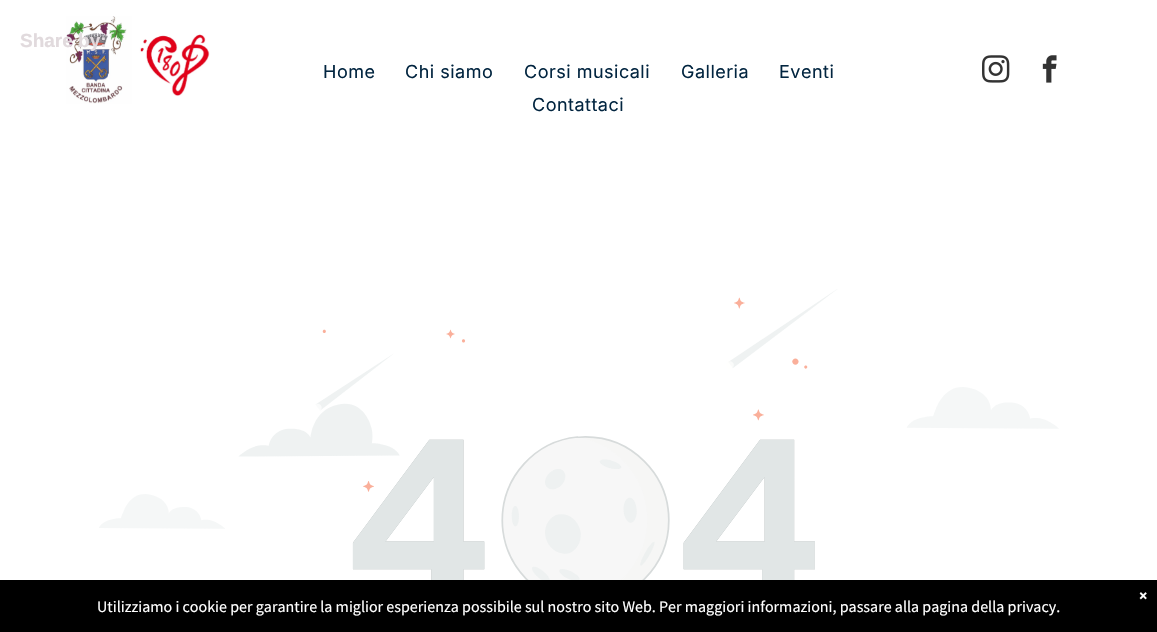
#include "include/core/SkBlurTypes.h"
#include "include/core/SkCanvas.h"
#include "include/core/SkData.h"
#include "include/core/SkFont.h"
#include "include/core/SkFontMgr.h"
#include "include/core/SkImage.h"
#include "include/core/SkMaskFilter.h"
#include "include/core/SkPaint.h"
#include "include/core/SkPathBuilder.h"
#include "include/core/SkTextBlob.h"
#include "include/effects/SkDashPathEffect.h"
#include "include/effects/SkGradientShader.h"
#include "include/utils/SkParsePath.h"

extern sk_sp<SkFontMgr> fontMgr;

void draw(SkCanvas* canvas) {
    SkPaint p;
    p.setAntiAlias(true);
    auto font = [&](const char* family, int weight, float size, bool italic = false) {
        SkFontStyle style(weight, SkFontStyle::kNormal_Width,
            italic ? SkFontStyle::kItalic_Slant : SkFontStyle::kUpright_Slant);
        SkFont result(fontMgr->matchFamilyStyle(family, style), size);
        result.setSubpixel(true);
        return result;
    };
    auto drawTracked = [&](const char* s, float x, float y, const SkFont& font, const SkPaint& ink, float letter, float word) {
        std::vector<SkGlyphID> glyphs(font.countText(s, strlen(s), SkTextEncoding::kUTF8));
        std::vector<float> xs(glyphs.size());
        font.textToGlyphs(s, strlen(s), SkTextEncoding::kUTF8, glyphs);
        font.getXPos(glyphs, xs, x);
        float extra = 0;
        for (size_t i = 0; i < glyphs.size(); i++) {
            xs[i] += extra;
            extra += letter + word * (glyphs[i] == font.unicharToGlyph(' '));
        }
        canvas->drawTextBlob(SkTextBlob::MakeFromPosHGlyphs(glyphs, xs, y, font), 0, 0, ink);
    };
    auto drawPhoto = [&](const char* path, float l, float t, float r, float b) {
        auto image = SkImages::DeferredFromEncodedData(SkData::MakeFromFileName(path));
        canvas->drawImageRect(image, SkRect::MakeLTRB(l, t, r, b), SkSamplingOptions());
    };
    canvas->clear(0xFFFFFFFF);
    drawPhoto("media/1.png", 66, 16, 210, 104);
    auto font1 = font("Liberation Sans", 700, 19);
    p.setColor(0xFFE1DADD);
    canvas->drawString("Share by:", 20, 47, font1, p);
    auto font2 = font("Inter", 400, 18);
    p.setColor(0xFF022540);
    {
        const struct { const char* s; float x, y; } items[] = {
            {"Home", 323, 78},
            {"Chi siamo", 405, 78},
            {"Corsi musicali", 524, 78},
            {"Galleria", 681, 78},
            {"Eventi", 779, 78},
            {"Contattaci", 532, 111},
        };
        for (auto [s, x, y] : items) {
            drawTracked(s, x, y, font2, p, 0.5f, 0);
        }
    }
    drawPhoto("media/2.png", 982, 55, 1010, 83);
    drawPhoto("media/3.png", 1042, 55, 1057, 83);
    drawPhoto("media/4.png", 99, 289, 1059, 580);
    p.setColor(0xFF000000);
    canvas->drawRect(SkRect::MakeLTRB(0, 580, 1157, 632), p);
    auto font3 = font("Source Sans Pro", 700, 16);
    p.setColor(0xFFFFFFFF);
    canvas->drawString("×", 1139, 601, font3, p);
    auto font4 = font("Source Sans Pro", 400, 16);
    canvas->drawString("Utilizziamo i cookie per garantire la miglior esperienza possibile sul nostro sito Web. Per maggiori informazioni, passare alla pagina della privacy.", 97, 612, font4, p);
}
